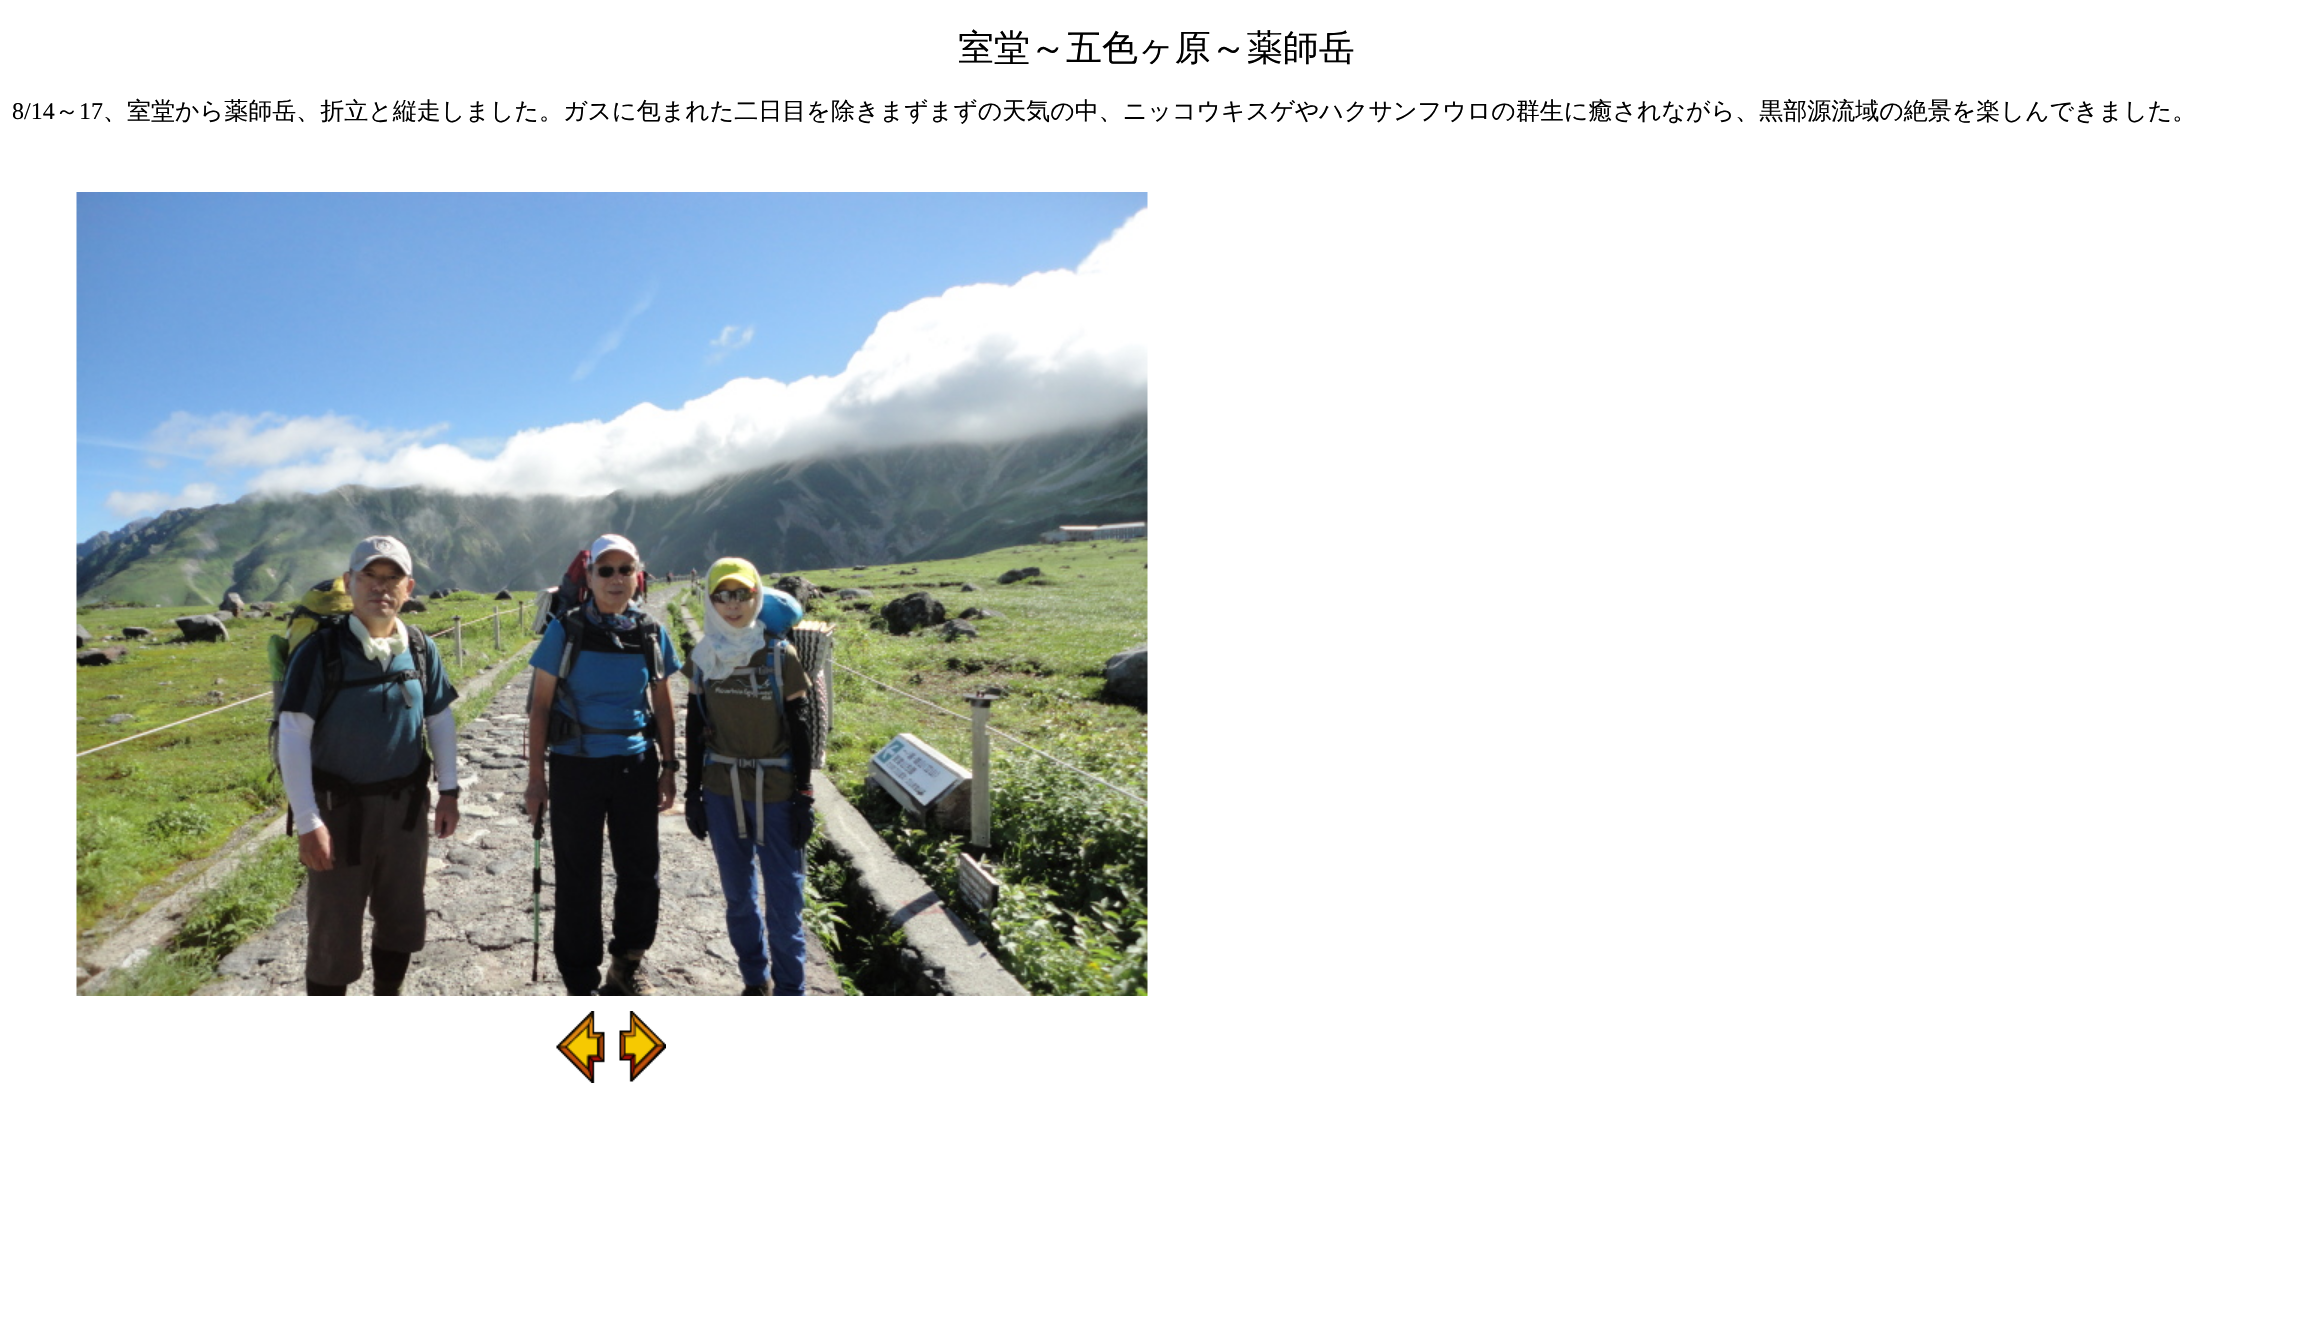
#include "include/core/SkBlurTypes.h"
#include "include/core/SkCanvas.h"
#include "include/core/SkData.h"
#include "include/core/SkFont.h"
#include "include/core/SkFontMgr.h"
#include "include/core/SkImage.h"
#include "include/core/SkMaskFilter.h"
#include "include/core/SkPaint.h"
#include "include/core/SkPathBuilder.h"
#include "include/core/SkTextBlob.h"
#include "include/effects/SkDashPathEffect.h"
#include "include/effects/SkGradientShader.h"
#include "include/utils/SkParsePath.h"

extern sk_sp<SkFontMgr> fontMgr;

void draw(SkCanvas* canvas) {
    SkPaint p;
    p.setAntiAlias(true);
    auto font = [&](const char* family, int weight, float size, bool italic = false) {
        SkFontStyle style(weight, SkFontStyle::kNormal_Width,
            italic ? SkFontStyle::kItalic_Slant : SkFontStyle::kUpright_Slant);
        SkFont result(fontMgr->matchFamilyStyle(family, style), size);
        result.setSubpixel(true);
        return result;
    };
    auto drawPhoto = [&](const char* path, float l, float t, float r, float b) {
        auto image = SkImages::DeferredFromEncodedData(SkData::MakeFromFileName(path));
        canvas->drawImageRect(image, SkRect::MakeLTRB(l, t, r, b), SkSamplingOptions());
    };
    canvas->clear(0xFFFFFFFF);
    auto font1 = font("WenQuanYi Zen Hei", 500, 36);
    p.setColor(0xFF000000);
    canvas->drawString("室堂～五色ヶ原～薬師岳", 958, 60, font1, p);
    auto font2 = font("Liberation Serif", 400, 24);
    canvas->drawString("8/14", 12, 119, font2, p);
    auto font3 = font("WenQuanYi Zen Hei", 500, 24);
    canvas->drawString("～", 55, 119, font3, p);
    canvas->drawString("17", 79, 119, font2, p);
    canvas->drawString("、室堂から薬師岳、折立と縦走しました。ガスに包まれた二日目を除きまずまずの天気の中、ニッコウキスゲやハクサンフウロの群生に癒されながら、黒部源流域の絶景を楽しんできました。", 103, 119, font3, p);
    drawPhoto("media/1.png", 76, 192, 1148, 996);
    drawPhoto("media/2.png", 556, 1011, 605, 1083);
    drawPhoto("media/3.png", 619, 1011, 666, 1082);
}
